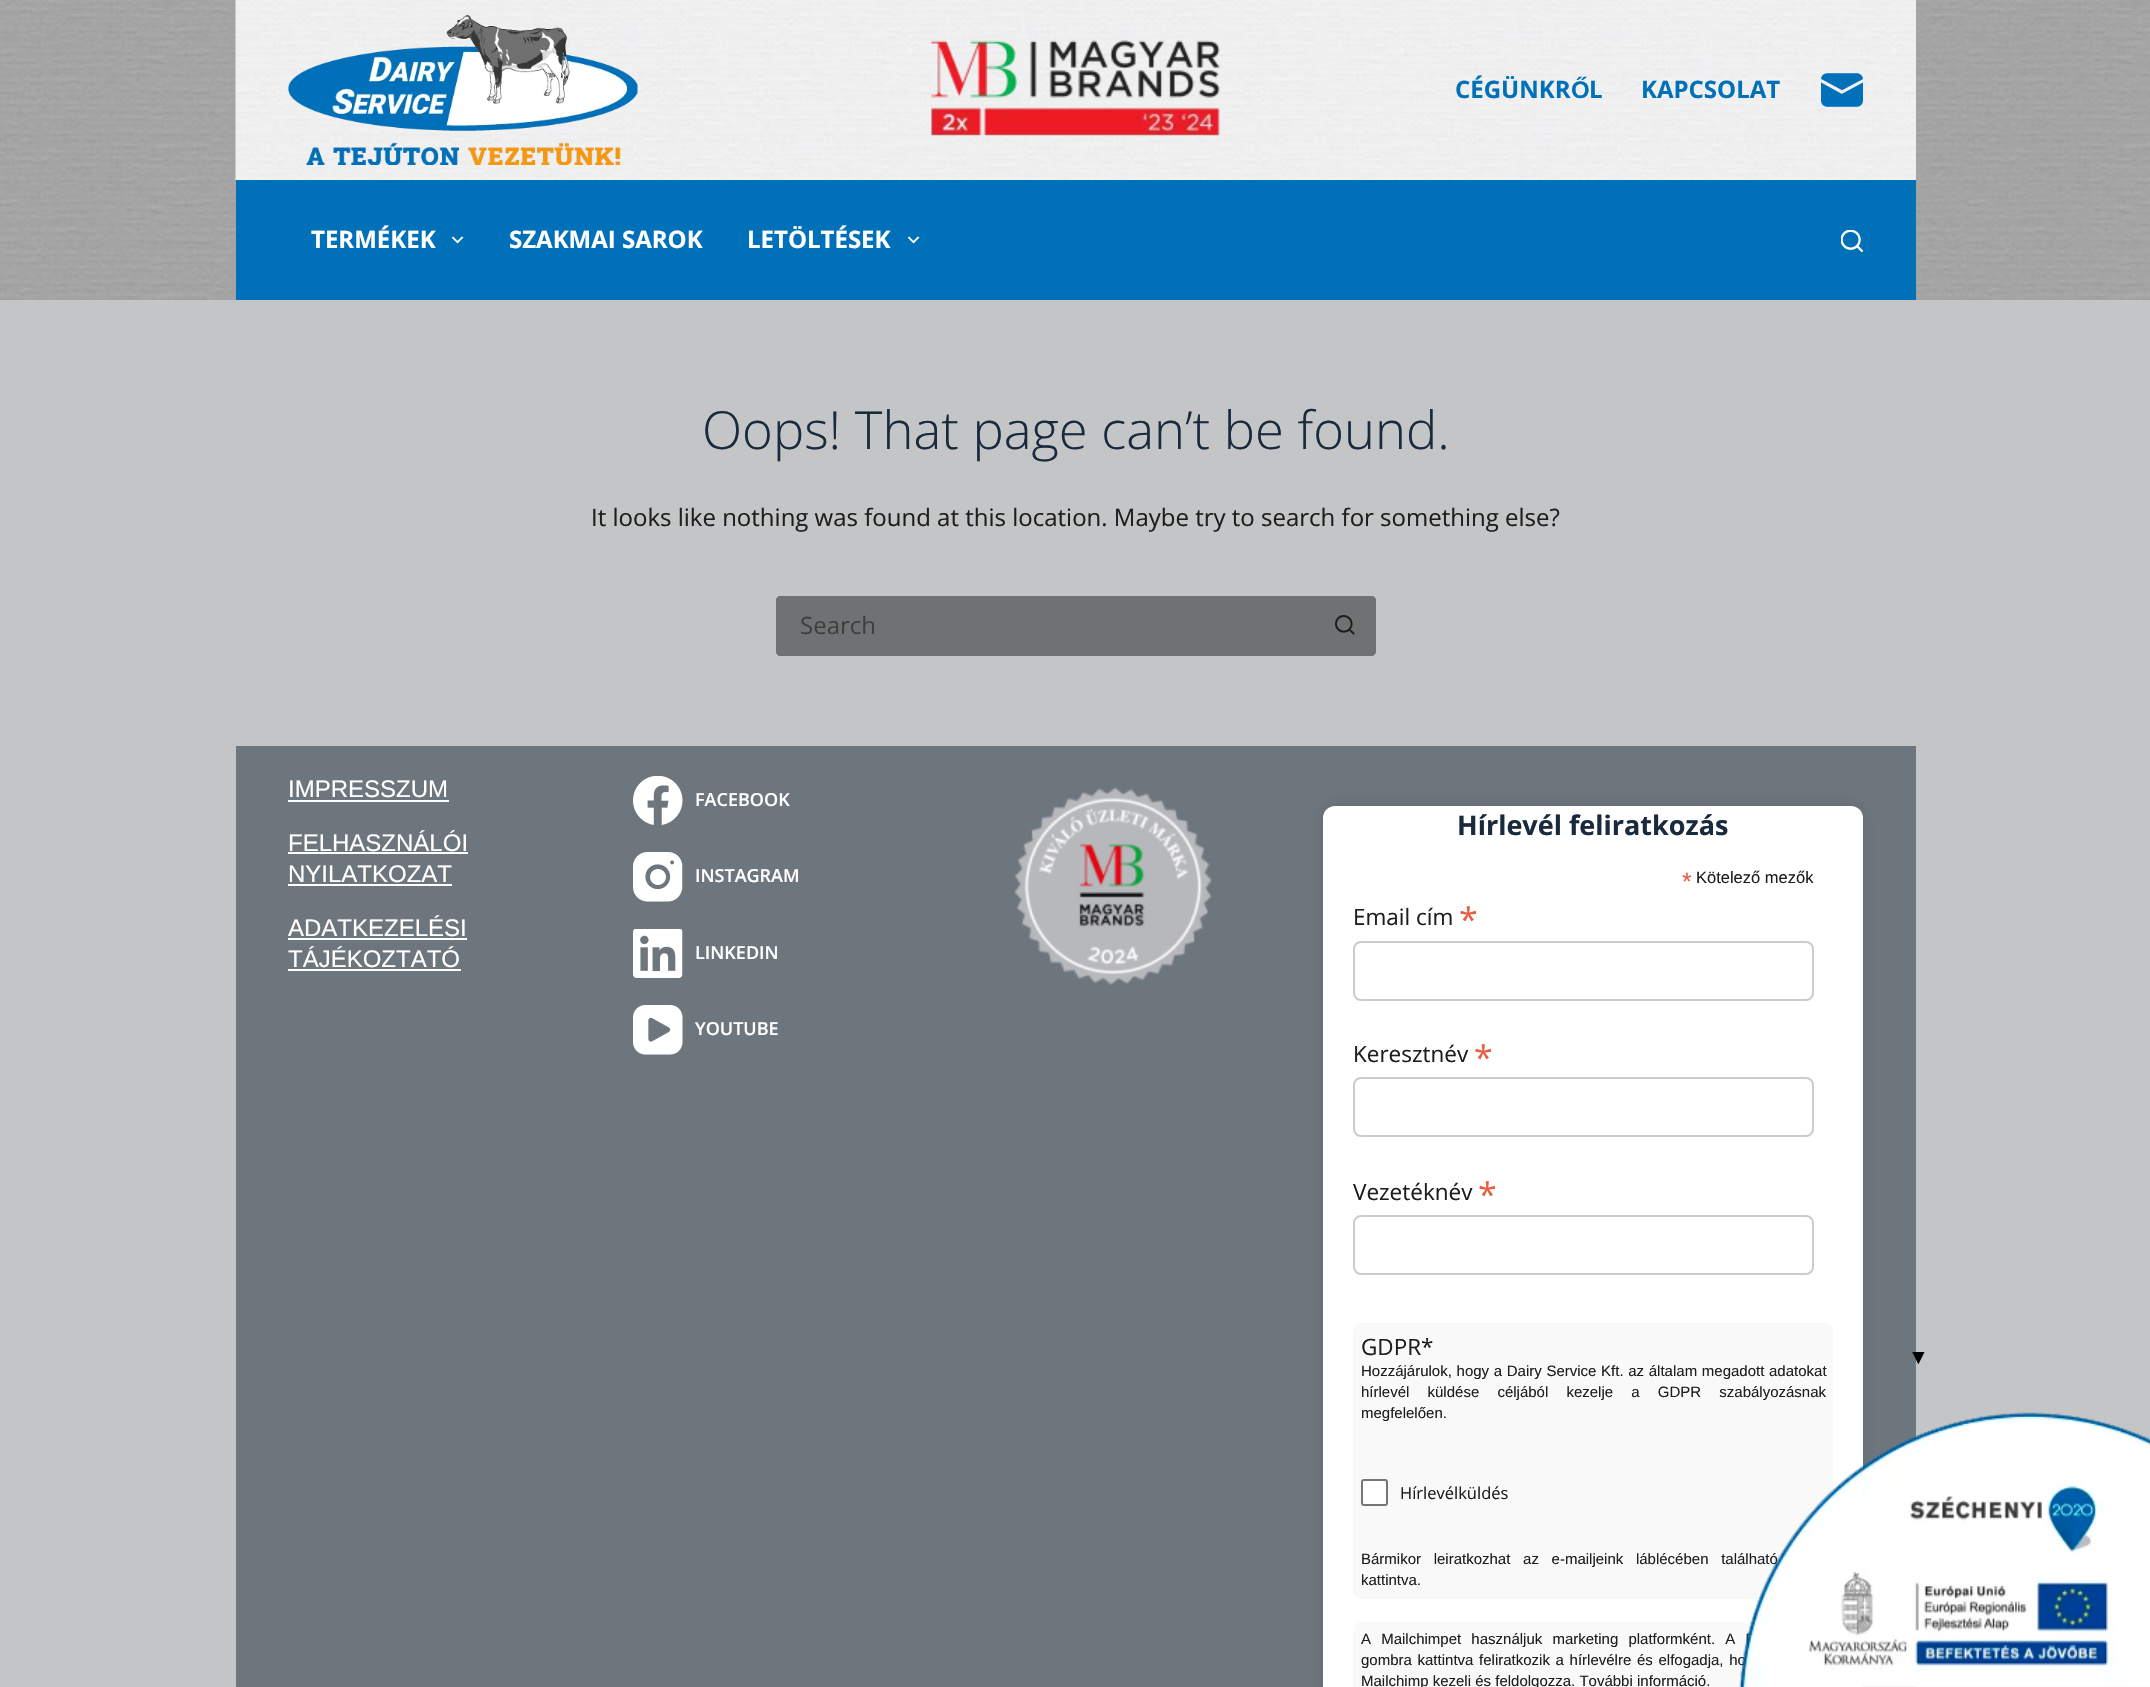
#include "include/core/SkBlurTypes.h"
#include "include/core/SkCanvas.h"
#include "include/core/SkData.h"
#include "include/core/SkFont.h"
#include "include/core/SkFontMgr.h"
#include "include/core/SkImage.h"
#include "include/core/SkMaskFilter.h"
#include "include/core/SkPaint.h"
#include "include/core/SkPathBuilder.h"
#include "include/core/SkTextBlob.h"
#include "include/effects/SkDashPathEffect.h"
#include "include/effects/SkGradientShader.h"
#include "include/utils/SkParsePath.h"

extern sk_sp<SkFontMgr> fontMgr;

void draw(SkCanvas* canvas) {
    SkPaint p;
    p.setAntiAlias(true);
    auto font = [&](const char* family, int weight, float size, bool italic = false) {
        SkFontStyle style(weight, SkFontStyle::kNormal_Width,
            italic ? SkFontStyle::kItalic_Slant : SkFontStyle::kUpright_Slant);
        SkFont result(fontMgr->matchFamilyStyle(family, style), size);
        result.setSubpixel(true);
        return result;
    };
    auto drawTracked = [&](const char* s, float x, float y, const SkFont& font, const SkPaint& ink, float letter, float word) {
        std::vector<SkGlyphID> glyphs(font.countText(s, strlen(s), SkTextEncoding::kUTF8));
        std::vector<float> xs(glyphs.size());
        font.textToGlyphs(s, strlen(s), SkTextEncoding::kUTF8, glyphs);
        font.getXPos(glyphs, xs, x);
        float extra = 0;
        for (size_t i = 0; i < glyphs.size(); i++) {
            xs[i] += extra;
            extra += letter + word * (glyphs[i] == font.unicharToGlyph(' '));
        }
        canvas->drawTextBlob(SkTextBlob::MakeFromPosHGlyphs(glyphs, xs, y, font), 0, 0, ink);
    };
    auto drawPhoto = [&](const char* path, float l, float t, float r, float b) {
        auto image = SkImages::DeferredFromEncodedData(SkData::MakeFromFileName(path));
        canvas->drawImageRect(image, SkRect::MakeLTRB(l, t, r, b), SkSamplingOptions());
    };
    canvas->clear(0xFFC4C5C6);
    drawPhoto("media/1.png", 0, 0, 2150, 300);
    p.setColor(0xFFF0F0F0);
    canvas->drawRect(SkRect::MakeLTRB(1915, 0, 1916, 180), p);
    drawPhoto("media/2.png", 235, 0, 1915, 180);
    drawPhoto("media/3.png", 288, 15, 638, 165);
    drawPhoto("media/4.png", 931, 40, 1220, 136);
    auto font1 = font("Open Sans", 700, 24);
    p.setColor(0xFF0071B9);
    canvas->drawString("CÉGÜNKR", 1455, 98, font1, p);
    auto font2 = font("Liberation Sans", 700, 24);
    canvas->drawString("Ő", 1571, 98, font2, p);
    canvas->drawString("L", 1589, 98, font1, p);
    canvas->drawString("KAPCSOLAT", 1641, 98, font1, p);
    drawPhoto("media/5.png", 1821, 73, 1863, 107);
    canvas->drawRect(SkRect::MakeLTRB(236, 180, 1916, 300), p);
    p.setColor(0xFFFFFFFF);
    canvas->drawString("TERMÉKEK", 311, 248, font1, p);
    drawPhoto("media/6.png", 452, 236, 464, 244);
    canvas->drawString("SZAKMAI SAROK", 509, 248, font1, p);
    canvas->drawString("LETÖLTÉSEK", 747, 248, font1, p);
    drawPhoto("media/6.png", 908, 236, 920, 244);
    drawPhoto("media/7.png", 1841, 230, 1863, 252);
    auto font3 = font("Open Sans", 300, 52.5f);
    p.setColor(0xFF192A3D);
    canvas->drawString("Oops! That page can’t be found.", 702, 449, font3, p);
    auto font4 = font("Open Sans", 400, 24);
    p.setColor(0xFF1E1E1E);
    canvas->drawString("It looks like nothing was found at this location. Maybe try to search for something else?", 591, 526, font4, p);
    p.setColor(0xFF707172);
    canvas->drawPath(SkPathBuilder().moveTo(781, 596).lineTo(1316, 596).lineTo(1316, 656).lineTo(781, 656).cubicTo(778, 656, 776, 654, 776, 651).lineTo(776, 601).cubicTo(776, 598, 778, 596, 781, 596).close().detach(), p);
    canvas->drawPath(SkPathBuilder(SkPathFillType::kEvenOdd).moveTo(780, 596).lineTo(1316, 596).lineTo(1316, 656).lineTo(780, 656).cubicTo(778, 656, 776, 653, 776, 651).lineTo(776, 600).cubicTo(776, 598, 778, 596, 780, 596).close().moveTo(780, 597).lineTo(1316, 597).lineTo(1316, 654).lineTo(780, 654).cubicTo(778, 654, 777, 653, 777, 651).lineTo(777, 600).cubicTo(777, 598, 778, 597, 780, 597).close().detach(), p);
    p.setColor(0xFF3F3F40);
    canvas->drawString("Search", 800, 634, font4, p);
    p.setColor(0xFF707172);
    canvas->drawPath(SkPathBuilder().moveTo(1316, 596).lineTo(1371, 596).cubicTo(1374, 596, 1376, 598, 1376, 601).lineTo(1376, 651).cubicTo(1376, 654, 1374, 656, 1371, 656).lineTo(1316, 656).close().detach(), p);
    canvas->drawPath(SkPathBuilder(SkPathFillType::kEvenOdd).moveTo(1316, 596).lineTo(1371, 596).cubicTo(1373, 596, 1376, 598, 1376, 600).lineTo(1376, 651).cubicTo(1376, 653, 1373, 656, 1371, 656).lineTo(1316, 656).close().moveTo(1316, 597).lineTo(1371, 597).cubicTo(1373, 597, 1374, 598, 1374, 600).lineTo(1374, 651).cubicTo(1374, 653, 1373, 654, 1371, 654).lineTo(1316, 654).close().detach(), p);
    drawPhoto("media/8.png", 1335, 615, 1355, 635);
    p.setColor(0xFF6D757D);
    canvas->drawRect(SkRect::MakeLTRB(236, 746, 1916, 1687), p);
    auto font5 = font("Liberation Sans", 400, 24);
    p.setColor(0xFFFFFFFF);
    canvas->drawString("IMPRESSZUM", 288, 797, font5, p);
    canvas->drawRect(SkRect::MakeLTRB(288, 800, 449, 802), p);
    canvas->drawString("FELHASZNÁLÓI", 288, 851, font5, p);
    canvas->drawRect(SkRect::MakeLTRB(288, 852, 468, 854), p);
    canvas->drawString("NYILATKOZAT", 288, 882, font5, p);
    canvas->drawRect(SkRect::MakeLTRB(288, 884, 452, 886), p);
    canvas->drawString("ADATKEZELÉSI", 288, 936, font5, p);
    canvas->drawRect(SkRect::MakeLTRB(288, 938, 467, 940), p);
    canvas->drawString("TÁJÉKOZTATÓ", 288, 967, font5, p);
    canvas->drawRect(SkRect::MakeLTRB(288, 969, 461, 971), p);
    drawPhoto("media/9.png", 633, 776, 683, 825);
    auto font6 = font("Open Sans", 600, 18);
    canvas->drawString("FACEBOOK", 695, 806, font6, p);
    drawPhoto("media/10.png", 633, 852, 683, 902);
    canvas->drawString("INSTAGRAM", 695, 882, font6, p);
    drawPhoto("media/11.png", 633, 929, 683, 978);
    canvas->drawString("LINKEDIN", 695, 959, font6, p);
    drawPhoto("media/12.png", 633, 1005, 683, 1055);
    canvas->drawString("YOUTUBE", 695, 1035, font6, p);
    drawPhoto("media/13.png", 1014, 787, 1212, 985);
    p.setColor(0x1A000000);
    p.setMaskFilter(SkMaskFilter::MakeBlur(kNormal_SkBlurStyle, 7.5f));
    canvas->drawRoundRect(SkRect::MakeLTRB(1323, 806, 1863, 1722), 12, 12, p);
    p.setMaskFilter(nullptr);
    p.setColor(0xFFFFFFFF);
    canvas->drawRoundRect(SkRect::MakeLTRB(1323, 806, 1863, 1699), 12, 12, p);
    auto font7 = font("Open Sans", 700, 27);
    p.setColor(0xFF192A3D);
    canvas->drawString("Hírlevél feliratkozás", 1457, 835, font7, p);
    auto font8 = font("Liberation Sans", 400, 25);
    p.setColor(0xFFE85C41);
    canvas->drawString("*", 1682, 890, font8, p);
    auto font9 = font("Liberation Sans", 400, 16.5f);
    p.setColor(0xFF1E1E1E);
    canvas->drawString("Kötelező mezők", 1696, 883, font9, p);
    auto font10 = font("Open Sans", 400, 22.5f);
    canvas->drawString("Email cím", 1353, 925, font10, p);
    auto font11 = font("Open Sans", 400, 34);
    p.setColor(0xFFE85C41);
    canvas->drawString("*", 1459, 932, font11, p);
    p.setStyle(SkPaint::kStroke_Style);
    p.setStrokeWidth(2);
    p.setColor(0xFFCCCCCC);
    canvas->drawRoundRect(SkRect::MakeLTRB(1354, 942, 1813, 1000), 7, 7, p);
    p.setStyle(SkPaint::kFill_Style);
    p.setColor(0xFF1E1E1E);
    canvas->drawString("Keresztnév", 1353, 1062, font10, p);
    p.setColor(0xFFE85C41);
    canvas->drawString("*", 1474, 1070, font11, p);
    p.setStyle(SkPaint::kStroke_Style);
    p.setColor(0xFFCCCCCC);
    canvas->drawRoundRect(SkRect::MakeLTRB(1354, 1078, 1813, 1136), 7, 7, p);
    p.setStyle(SkPaint::kFill_Style);
    p.setColor(0xFF1E1E1E);
    canvas->drawString("Vezetéknév", 1353, 1200, font10, p);
    p.setColor(0xFFE85C41);
    canvas->drawString("*", 1478, 1207, font11, p);
    p.setStyle(SkPaint::kStroke_Style);
    p.setColor(0xFFCCCCCC);
    canvas->drawRoundRect(SkRect::MakeLTRB(1354, 1216, 1813, 1274), 7, 7, p);
    p.setStyle(SkPaint::kFill_Style);
    p.setColor(0xFFF9F9F9);
    canvas->drawRoundRect(SkRect::MakeLTRB(1353, 1323, 1833, 1599), 8, 8, p);
    p.setColor(0xFF1E1E1E);
    canvas->drawString("GDPR*", 1361, 1355, font10, p);
    auto font12 = font("Liberation Sans", 400, 15);
    drawTracked("Hozzájárulok, hogy a Dairy Service Kft. az általam megadott adatokat", 1361, 1376, font12, p, 0, 0.5f);
    drawTracked("hírlevél küldése céljából kezelje a GDPR szabályozásnak", 1361, 1397, font12, p, 0, 14);
    canvas->drawString("megfelelően.", 1361, 1418, font12, p);
    p.setColor(0xFFFFFFFF);
    canvas->drawRoundRect(SkRect::MakeLTRB(1362, 1480, 1387, 1505), 2, 2, p);
    p.setStyle(SkPaint::kStroke_Style);
    p.setColor(0xFF767676);
    canvas->drawRoundRect(SkRect::MakeLTRB(1362, 1480, 1387, 1505), 2, 2, p);
    auto font13 = font("Open Sans", 400, 16.5f);
    p.setStyle(SkPaint::kFill_Style);
    p.setColor(0xFF1E1E1E);
    canvas->drawString("Hírlevélküldés", 1400, 1499, font13, p);
    drawTracked("Bármikor leiratkozhat az e-mailjeink láblécében található", 1361, 1564, font12, p, 0, 8.5f);
    canvas->drawString("kattintva.", 1361, 1585, font12, p);
    p.setColor(0xFFF9F9F9);
    canvas->drawRoundRect(SkRect::MakeLTRB(1353, 1622, 1833, 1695), 8, 8, p);
    p.setColor(0xFF1E1E1E);
    drawTracked("A Mailchimpet használjuk marketing platformként. A F", 1361, 1644, font12, p, 0, 6);
    drawTracked("gombra kattintva feliratkozik a hírlevélre és elfogadja, ho", 1361, 1665, font12, p, 0, 1.5f);
    canvas->drawString("Mailchimp kezeli és feldolgozza. További információ.", 1361, 1686, font12, p);
    auto font14 = font("Liberation Sans", 400, 21);
    p.setColor(0xFF000000);
    canvas->drawString("▼", 1908, 1364, font14, p);
    drawPhoto("media/14.png", 1739, 1412, 2150, 1687);
}
